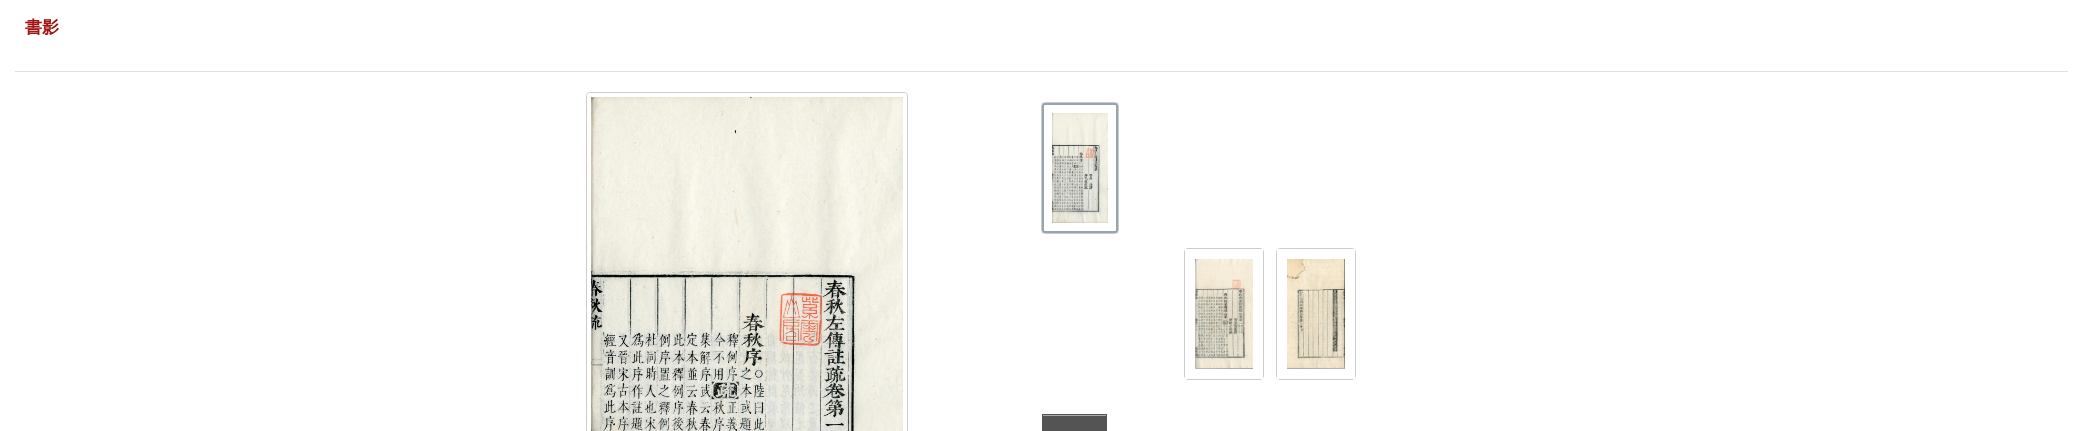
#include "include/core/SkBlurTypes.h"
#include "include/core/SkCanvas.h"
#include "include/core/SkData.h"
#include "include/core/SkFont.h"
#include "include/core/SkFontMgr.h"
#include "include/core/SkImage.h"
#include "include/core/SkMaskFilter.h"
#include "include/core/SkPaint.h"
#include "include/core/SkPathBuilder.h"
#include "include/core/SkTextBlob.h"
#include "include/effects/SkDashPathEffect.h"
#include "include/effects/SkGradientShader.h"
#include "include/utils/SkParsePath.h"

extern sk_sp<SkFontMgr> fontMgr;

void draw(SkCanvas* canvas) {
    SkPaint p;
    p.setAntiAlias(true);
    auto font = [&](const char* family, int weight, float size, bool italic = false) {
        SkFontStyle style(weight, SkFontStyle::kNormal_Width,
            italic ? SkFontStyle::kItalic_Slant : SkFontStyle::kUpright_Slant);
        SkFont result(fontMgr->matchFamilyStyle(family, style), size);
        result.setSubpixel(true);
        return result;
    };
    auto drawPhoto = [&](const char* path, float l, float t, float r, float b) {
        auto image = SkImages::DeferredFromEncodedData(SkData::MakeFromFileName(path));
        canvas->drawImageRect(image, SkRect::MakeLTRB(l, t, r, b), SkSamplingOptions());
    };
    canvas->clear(0xFFFFFFFF);
    auto font1 = font("WenQuanYi Zen Hei", 700, 17);
    p.setColor(0xFFA31514);
    canvas->drawString("書影", 25, 33, font1, p);
    p.setColor(0xFFE1E1E1);
    canvas->drawRect(SkRect::MakeLTRB(15, 71, 2068, 72), p);
    p.setStyle(SkPaint::kStroke_Style);
    p.setStrokeWidth(1);
    p.setColor(0xFFCCCCCC);
    canvas->drawRoundRect(SkRect::MakeLTRB(586.5f, 92.5f, 907.5f, 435.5f), 3.5f, 3.5f, p);
    p.setStrokeWidth(4);
    p.setColor(0xFFFFFFFF);
    canvas->drawRoundRect(SkRect::MakeLTRB(589, 95, 905, 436), 1, 1, p);
    drawPhoto("media/1.png", 591, 97, 903, 431);
    p.setStrokeWidth(1);
    p.setColor(0xFFCCCCCC);
    canvas->drawRoundRect(SkRect::MakeLTRB(1041.5f, 102.5f, 1118.5f, 233.5f), 3.5f, 3.5f, p);
    p.setStrokeWidth(2);
    p.setColor(0xFF94A5AD);
    canvas->drawRoundRect(SkRect::MakeLTRB(1043, 104, 1117, 232), 2, 2, p);
    drawPhoto("media/2.png", 1052, 113, 1108, 223);
    p.setStrokeWidth(1);
    p.setColor(0xFFCCCCCC);
    canvas->drawRoundRect(SkRect::MakeLTRB(1184.5f, 248.5f, 1263.5f, 379.5f), 3.5f, 3.5f, p);
    canvas->drawRoundRect(SkRect::MakeLTRB(1276.5f, 248.5f, 1355.5f, 379.5f), 3.5f, 3.5f, p);
    p.setStrokeWidth(10);
    p.setColor(0xFFFFFFFF);
    canvas->drawPath(SkPathBuilder().moveTo(1190, 254).lineTo(1258, 254).lineTo(1258, 374).lineTo(1190, 374).close().detach(), p);
    canvas->drawPath(SkPathBuilder().moveTo(1282, 254).lineTo(1350, 254).lineTo(1350, 374).lineTo(1282, 374).close().detach(), p);
    drawPhoto("media/3.png", 1195, 259, 1253, 369);
    drawPhoto("media/4.png", 1287, 259, 1345, 369);
    p.setStyle(SkPaint::kFill_Style);
    p.setColor(0xFF545454);
    canvas->drawRect(SkRect::MakeLTRB(1042, 414, 1107, 431), p);
    p.setColor(0xFFAAAAAA);
    canvas->drawRect(SkRect::MakeLTRB(1043, 415, 1106, 416), p);
}
